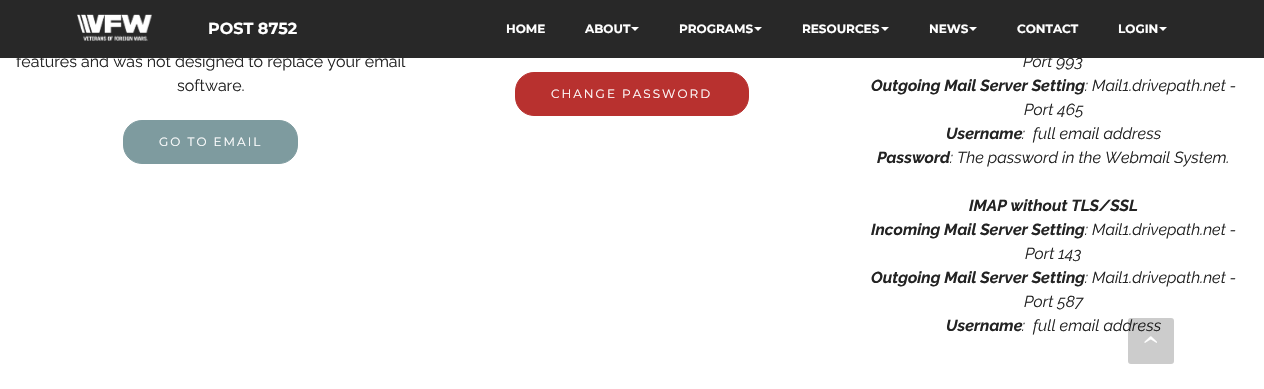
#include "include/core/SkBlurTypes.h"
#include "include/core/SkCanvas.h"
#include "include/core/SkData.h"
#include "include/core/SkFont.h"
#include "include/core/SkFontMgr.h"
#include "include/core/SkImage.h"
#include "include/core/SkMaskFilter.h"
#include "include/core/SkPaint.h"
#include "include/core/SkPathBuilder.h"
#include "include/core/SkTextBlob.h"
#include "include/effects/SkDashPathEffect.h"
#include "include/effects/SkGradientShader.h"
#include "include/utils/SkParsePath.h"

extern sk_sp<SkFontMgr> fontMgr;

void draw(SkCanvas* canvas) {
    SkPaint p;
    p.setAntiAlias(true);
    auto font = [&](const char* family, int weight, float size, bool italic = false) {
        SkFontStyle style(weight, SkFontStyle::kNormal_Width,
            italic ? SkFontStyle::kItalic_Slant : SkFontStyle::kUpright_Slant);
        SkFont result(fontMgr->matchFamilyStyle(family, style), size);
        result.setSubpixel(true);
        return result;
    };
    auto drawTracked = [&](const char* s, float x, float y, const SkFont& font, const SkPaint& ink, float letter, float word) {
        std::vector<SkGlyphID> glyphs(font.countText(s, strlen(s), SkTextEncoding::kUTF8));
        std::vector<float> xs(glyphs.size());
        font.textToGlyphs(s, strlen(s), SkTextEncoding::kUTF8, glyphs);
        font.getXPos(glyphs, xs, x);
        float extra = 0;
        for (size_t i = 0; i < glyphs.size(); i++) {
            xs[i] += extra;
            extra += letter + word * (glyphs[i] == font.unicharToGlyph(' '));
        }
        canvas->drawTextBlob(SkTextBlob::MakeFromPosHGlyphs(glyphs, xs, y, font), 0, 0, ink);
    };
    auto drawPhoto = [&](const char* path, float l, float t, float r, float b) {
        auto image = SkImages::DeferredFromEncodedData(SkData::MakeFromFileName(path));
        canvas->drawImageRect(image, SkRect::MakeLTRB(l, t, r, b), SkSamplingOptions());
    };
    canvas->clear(0xFFFFFFFF);
    auto font1 = font("Raleway", 400, 16);
    p.setColor(0xFF232323);
    canvas->drawString("features and was not designed to replace your email", 16, 67, font1, p);
    auto font2 = font("Raleway", 400, 16, true);
    canvas->drawString("Port 993", 1023, 67, font2, p);
    p.setColor(0xFF282828);
    canvas->drawRect(SkRect::MakeLTRB(0, 0, 1264, 58), p);
    drawPhoto("media/1.png", 77, 14, 152, 41);
    auto font3 = font("Montserrat", 700, 16);
    p.setColor(0xFFFFFFFF);
    canvas->drawString("POST 8752", 208, 34, font3, p);
    auto font4 = font("Montserrat", 700, 12);
    canvas->drawString("HOME", 506, 33, font4, p);
    canvas->drawString("ABOUT", 585, 33, font4, p);
    canvas->drawPath(SkPathBuilder().moveTo(631, 27).lineTo(639, 27).lineTo(635, 31).close().detach(), p);
    canvas->drawString("PROGRAMS", 679, 33, font4, p);
    canvas->drawPath(SkPathBuilder().moveTo(754, 27).lineTo(762, 27).lineTo(758, 31).close().detach(), p);
    canvas->drawString("RESOURCES", 802, 33, font4, p);
    canvas->drawPath(SkPathBuilder().moveTo(881, 27).lineTo(889, 27).lineTo(885, 31).close().detach(), p);
    canvas->drawString("NEWS", 929, 33, font4, p);
    canvas->drawPath(SkPathBuilder().moveTo(969, 27).lineTo(977, 27).lineTo(973, 31).close().detach(), p);
    canvas->drawString("CONTACT", 1017, 33, font4, p);
    canvas->drawString("LOGIN", 1118, 33, font4, p);
    canvas->drawPath(SkPathBuilder().moveTo(1159, 27).lineTo(1167, 27).lineTo(1163, 31).close().detach(), p);
    p.setColor(0xFF232323);
    canvas->drawString("software.", 177, 91, font1, p);
    p.setColor(0xFF7E9B9F);
    canvas->drawRoundRect(SkRect::MakeLTRB(123.5f, 120.5f, 297.5f, 163.5f), 18.5f, 18.5f, p);
    p.setStyle(SkPaint::kStroke_Style);
    p.setStrokeWidth(1);
    canvas->drawRoundRect(SkRect::MakeLTRB(123.5f, 120.5f, 297.5f, 163.5f), 18.5f, 18.5f, p);
    auto font5 = font("Montserrat", 400, 12);
    p.setStyle(SkPaint::kFill_Style);
    p.setColor(0xFFFFFFFF);
    drawTracked("GO TO EMAIL", 159, 146, font5, p, 2, 0);
    p.setColor(0xFFB8312F);
    canvas->drawRoundRect(SkRect::MakeLTRB(515.5f, 72.5f, 748.5f, 115.5f), 18.5f, 18.5f, p);
    p.setStyle(SkPaint::kStroke_Style);
    canvas->drawRoundRect(SkRect::MakeLTRB(515.5f, 72.5f, 748.5f, 115.5f), 18.5f, 18.5f, p);
    p.setStyle(SkPaint::kFill_Style);
    p.setColor(0xFFFFFFFF);
    drawTracked("CHANGE PASSWORD", 551, 98, font5, p, 2, 0);
    auto font6 = font("Raleway", 700, 16, true);
    p.setColor(0xFF232323);
    canvas->drawString("Outgoing Mail Server Setting", 871, 91, font6, p);
    canvas->drawString(": Mail1.drivepath.net -", 1085, 91, font2, p);
    canvas->drawString("Port 465", 1024, 115, font2, p);
    canvas->drawString("Username", 946, 139, font6, p);
    canvas->drawString(":  full email address", 1022, 139, font2, p);
    canvas->drawString("Password", 877, 163, font6, p);
    canvas->drawString(": The password in the Webmail System.", 950, 163, font2, p);
    canvas->drawString("IMAP without TLS/SSL", 969, 211, font6, p);
    canvas->drawString("Incoming Mail Server Setting", 871, 235, font6, p);
    canvas->drawString(": Mail1.drivepath.net -", 1085, 235, font2, p);
    canvas->drawString("Port 143", 1025, 259, font2, p);
    canvas->drawString("Outgoing Mail Server Setting", 871, 283, font6, p);
    canvas->drawString(": Mail1.drivepath.net -", 1085, 283, font2, p);
    canvas->drawString("Port 587", 1024, 307, font2, p);
    canvas->drawString("Username", 946, 331, font6, p);
    canvas->drawString(":  full email address", 1022, 331, font2, p);
    p.setColor(0x33000000);
    canvas->drawRoundRect(SkRect::MakeLTRB(1128, 318, 1174, 364), 3, 3, p);
    auto font7 = font("Liberation Serif", 400, 32);
    p.setColor(0xFFFFFFFF);
    canvas->save();
    canvas->rotate(-90, 1158, 345);
    canvas->drawString("›", 1158, 345, font7, p);
    canvas->restore();
}
